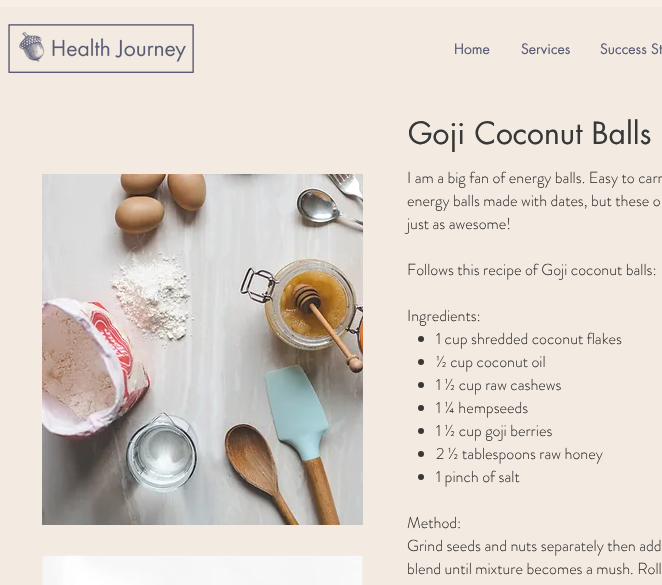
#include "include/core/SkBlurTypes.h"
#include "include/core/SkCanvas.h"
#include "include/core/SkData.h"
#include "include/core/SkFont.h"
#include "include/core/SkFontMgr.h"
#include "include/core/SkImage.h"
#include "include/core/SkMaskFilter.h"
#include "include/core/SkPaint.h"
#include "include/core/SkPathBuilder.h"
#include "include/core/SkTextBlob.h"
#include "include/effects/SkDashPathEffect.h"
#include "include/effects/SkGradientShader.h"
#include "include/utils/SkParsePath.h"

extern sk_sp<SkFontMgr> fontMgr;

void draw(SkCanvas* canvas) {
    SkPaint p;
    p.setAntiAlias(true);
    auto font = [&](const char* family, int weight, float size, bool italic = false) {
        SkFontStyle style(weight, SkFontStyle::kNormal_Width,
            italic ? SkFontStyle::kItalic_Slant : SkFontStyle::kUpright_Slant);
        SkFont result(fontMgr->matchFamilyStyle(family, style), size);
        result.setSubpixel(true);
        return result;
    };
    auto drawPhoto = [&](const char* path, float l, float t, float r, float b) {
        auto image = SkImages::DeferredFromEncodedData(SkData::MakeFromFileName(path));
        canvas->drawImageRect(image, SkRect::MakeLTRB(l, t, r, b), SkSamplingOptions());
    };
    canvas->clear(0xFFF3EBE2);
    p.setColor(0xFFF6F0E9);
    canvas->drawRect(SkRect::MakeLTRB(0, 0, 662, 7), p);
    drawPhoto("media/1.png", 8, 24, 194, 73);
    auto font1 = font("futura", 400, 14);
    p.setColor(0xFF595B73);
    {
        const struct { const char* s; float x, y; } items[] = {
            {"Home", 454, 54},
            {"Services", 521, 54},
            {"Success St", 600, 54},
        };
        for (auto [s, x, y] : items) {
            canvas->drawString(s, x, y, font1, p);
        }
    }
    auto font2 = font("futura", 400, 30);
    p.setColor(0xFF383838);
    canvas->drawString("Goji Coconut Balls", 408, 144, font2, p);
    drawPhoto("media/2.png", 42, 174, 363, 525);
    auto font3 = font("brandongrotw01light", 300, 16);
    {
        const struct { const char* s; float x, y; } items[] = {
            {"I am a big fan of energy balls. Easy to carr", 407, 183},
            {"energy balls made with dates, but these o", 407, 206},
            {"just as awesome!", 407, 229},
            {"Follows this recipe of Goji coconut balls:", 407, 275},
            {"Ingredients:", 407, 321},
        };
        for (auto [s, x, y] : items) {
            canvas->drawString(s, x, y, font3, p);
        }
    }
    canvas->drawCircle(421, 339, 3, p);
    canvas->drawString("1 cup shredded coconut flakes", 436, 344, font3, p);
    canvas->drawCircle(421, 362, 3, p);
    canvas->drawString("½ cup coconut oil", 436, 367, font3, p);
    canvas->drawCircle(421, 385, 3, p);
    canvas->drawString("1 ½ cup raw cashews", 436, 390, font3, p);
    canvas->drawCircle(421, 408, 3, p);
    canvas->drawString("1 ¼ hempseeds", 436, 413, font3, p);
    canvas->drawCircle(421, 431, 3, p);
    canvas->drawString("1 ½ cup goji berries", 436, 436, font3, p);
    canvas->drawCircle(421, 454, 3, p);
    canvas->drawString("2 ½ tablespoons raw honey", 436, 459, font3, p);
    canvas->drawCircle(421, 477, 3, p);
    {
        const struct { const char* s; float x, y; } items[] = {
            {"1 pinch of salt", 436, 482},
            {"Method:", 407, 528},
            {"Grind seeds and nuts separately then add", 407, 551},
            {"blend until mixture becomes a mush. Roll", 407, 574},
        };
        for (auto [s, x, y] : items) {
            canvas->drawString(s, x, y, font3, p);
        }
    }
    drawPhoto("media/3.png", 42, 555, 363, 585);
}
